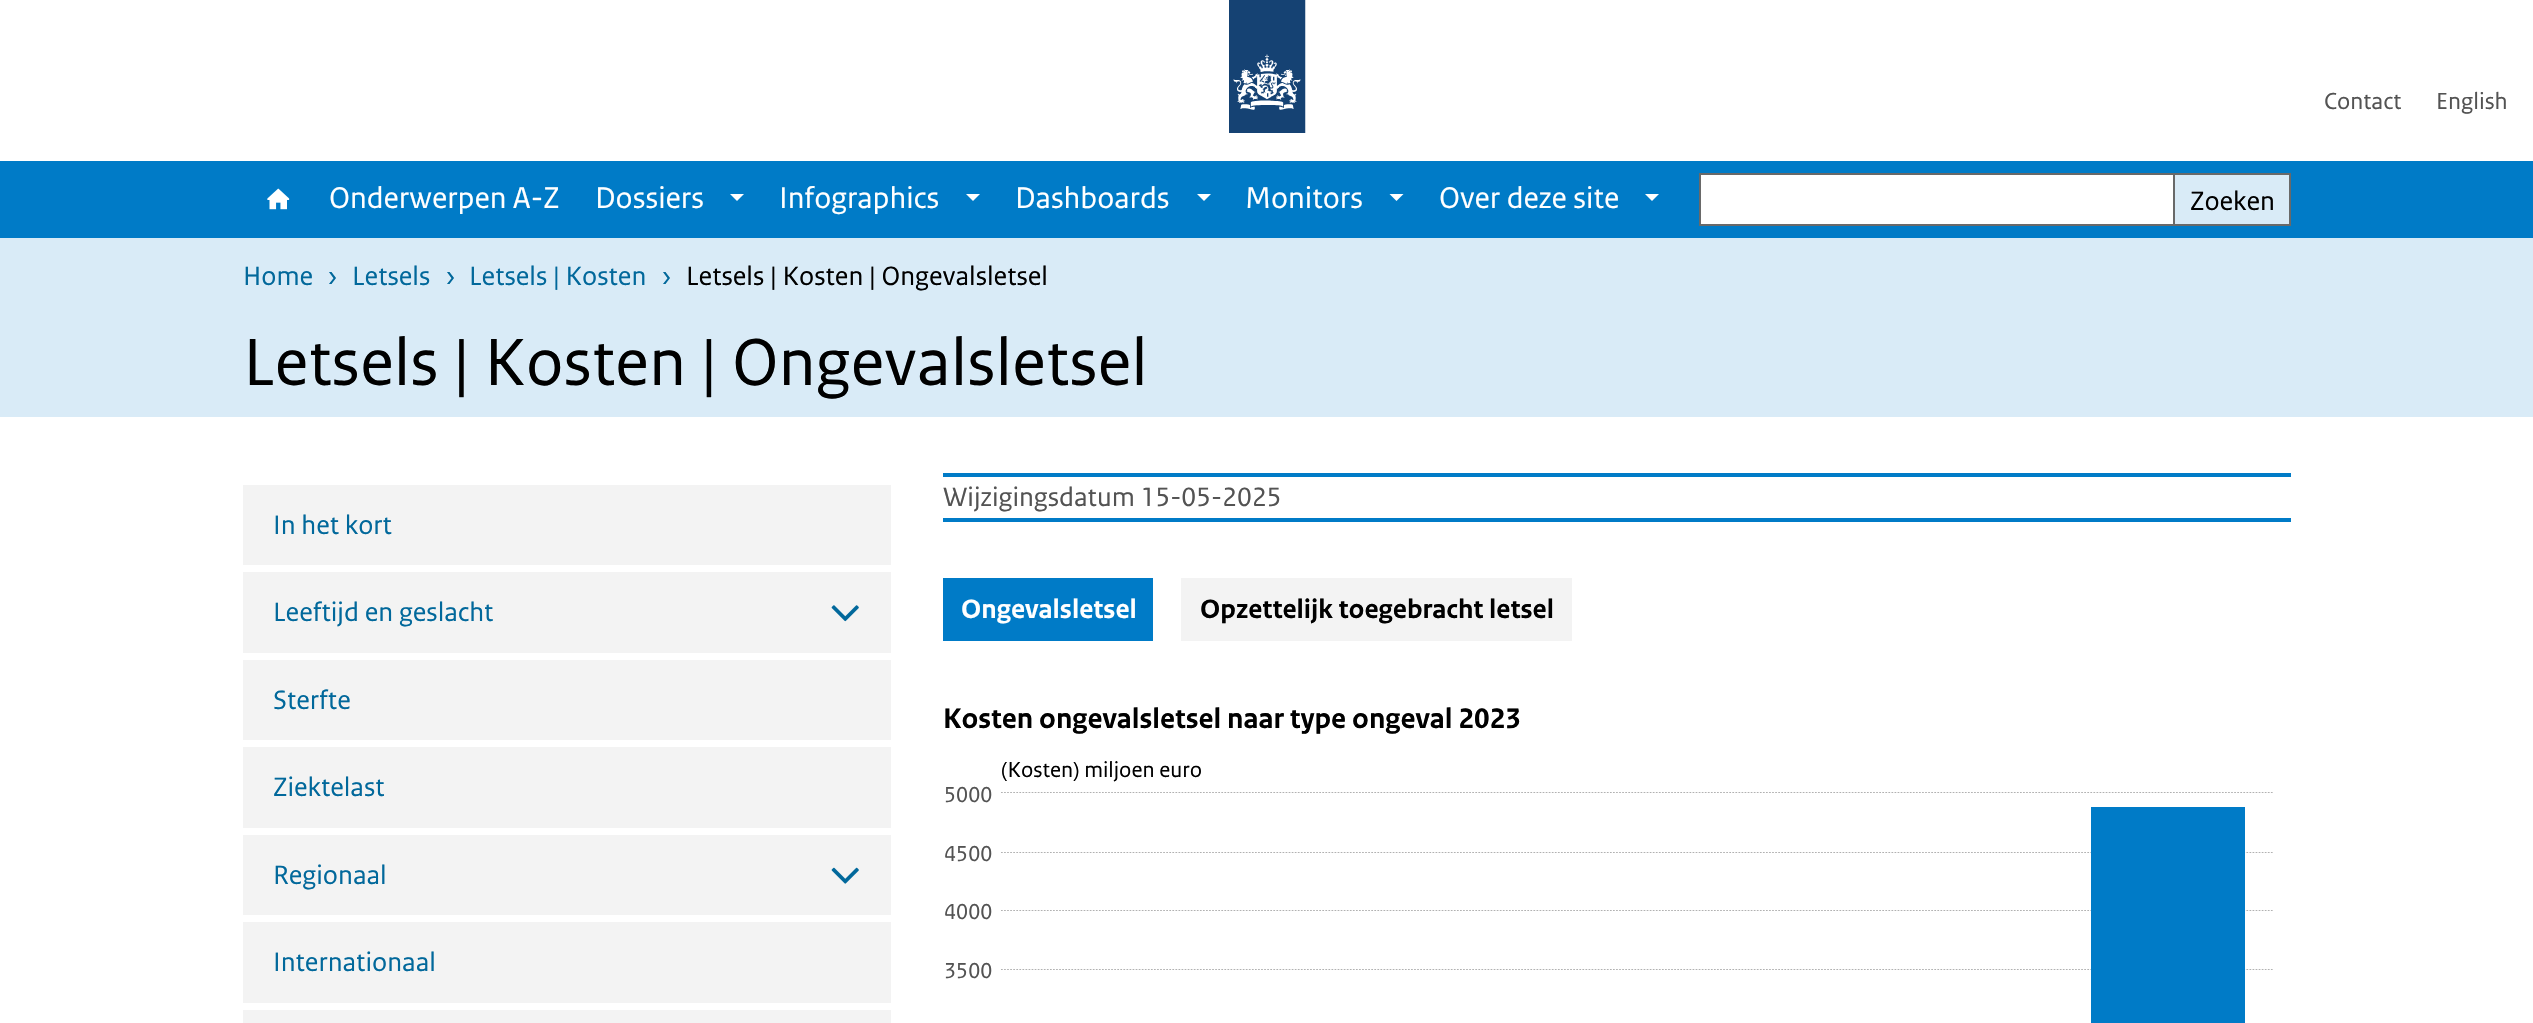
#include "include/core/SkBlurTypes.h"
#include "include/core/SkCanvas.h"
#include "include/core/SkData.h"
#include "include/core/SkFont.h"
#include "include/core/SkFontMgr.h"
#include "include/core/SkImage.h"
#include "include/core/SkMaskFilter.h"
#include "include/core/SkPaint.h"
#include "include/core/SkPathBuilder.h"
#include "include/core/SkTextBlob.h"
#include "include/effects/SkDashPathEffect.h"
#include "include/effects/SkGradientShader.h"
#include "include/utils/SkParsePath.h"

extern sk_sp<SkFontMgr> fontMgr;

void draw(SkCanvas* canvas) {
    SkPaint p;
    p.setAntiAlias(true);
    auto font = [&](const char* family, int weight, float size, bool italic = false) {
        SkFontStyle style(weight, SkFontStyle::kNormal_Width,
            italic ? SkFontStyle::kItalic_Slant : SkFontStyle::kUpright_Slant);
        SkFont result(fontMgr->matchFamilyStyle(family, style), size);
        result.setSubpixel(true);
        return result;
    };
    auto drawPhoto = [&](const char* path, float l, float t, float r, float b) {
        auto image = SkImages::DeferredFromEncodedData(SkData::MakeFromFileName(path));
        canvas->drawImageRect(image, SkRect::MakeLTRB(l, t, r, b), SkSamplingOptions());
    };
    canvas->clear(0xFFFFFFFF);
    drawPhoto("media/1.png", 1229, 0, 1306, 133);
    auto font1 = font("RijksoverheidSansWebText", 400, 24.5f);
    p.setColor(0xFF535353);
    canvas->drawString("Contact", 2324, 109, font1, p);
    canvas->drawString("English", 2436, 109, font1, p);
    p.setColor(0xFF007BC7);
    canvas->drawRect(SkRect::MakeLTRB(0, 161, 2533, 238), p);
    drawPhoto("media/2.png", 267, 188, 290, 210);
    auto font2 = font("RijksoverheidSansWebText", 400, 31.5f);
    p.setColor(0xFFFFFFFF);
    canvas->drawString("Onderwerpen A-Z", 329, 208, font2, p);
    canvas->drawString("Dossiers", 595, 208, font2, p);
    canvas->drawPath(SkPathBuilder().moveTo(730, 194).lineTo(744, 194).lineTo(737, 201).close().detach(), p);
    canvas->drawString("Infographics", 779, 208, font2, p);
    canvas->drawPath(SkPathBuilder().moveTo(966, 194).lineTo(980, 194).lineTo(973, 201).close().detach(), p);
    canvas->drawString("Dashboards", 1015, 208, font2, p);
    canvas->drawPath(SkPathBuilder().moveTo(1197, 194).lineTo(1211, 194).lineTo(1204, 201).close().detach(), p);
    canvas->drawString("Monitors", 1245, 208, font2, p);
    canvas->drawPath(SkPathBuilder().moveTo(1389.5f, 194).lineTo(1403.5f, 194).lineTo(1396.5f, 201).close().detach(), p);
    canvas->drawString("Over deze site", 1439, 208, font2, p);
    canvas->drawPath(SkPathBuilder().moveTo(1645, 194).lineTo(1659, 194).lineTo(1652, 201).close().detach(), p);
    canvas->drawRect(SkRect::MakeLTRB(1700, 174, 2174, 225), p);
    p.setStyle(SkPaint::kStroke_Style);
    p.setStrokeWidth(2);
    p.setColor(0xFF696969);
    canvas->drawRect(SkRect::MakeLTRB(1700, 174, 2174, 225), p);
    p.setStyle(SkPaint::kFill_Style);
    {
        const struct { float l, t, r, b; SkColor color; } items[] = {
            {2175, 175, 2289, 224, 0xFFD9EBF7},
            {2175, 173, 2291, 175, 0xFF696969},
            {2289, 173, 2291, 226, 0xFF696969},
            {2175, 224, 2291, 226, 0xFF696969},
        };
        for (auto [l, t, r, b, color] : items) {
            p.setColor(color);
            canvas->drawRect(SkRect::MakeLTRB(l, t, r, b), p);
        }
    }
    auto font3 = font("RijksoverheidSansWebText", 400, 28);
    p.setColor(0xFF000000);
    canvas->drawString("Zoeken", 2190, 210, font3, p);
    p.setColor(0xFFD9EBF7);
    canvas->drawRect(SkRect::MakeLTRB(0, 238, 2533, 417), p);
    p.setColor(0xFF01689B);
    {
        const struct { const char* s; float x, y; } items[] = {
            {"Home", 243, 285},
            {"›", 327, 285},
            {"Letsels", 352, 285},
            {"›", 445, 285},
            {"Letsels | Kosten", 469, 285},
            {"›", 661, 285},
        };
        for (auto [s, x, y] : items) {
            canvas->drawString(s, x, y, font3, p);
        }
    }
    p.setColor(0xFF000000);
    canvas->drawString("Letsels | Kosten | Ongevalsletsel", 686, 285, font3, p);
    auto font4 = font("RijksoverheidSansWebText", 400, 70);
    canvas->drawString("Letsels | Kosten | Ongevalsletsel", 243, 385, font4, p);
    p.setColor(0xFFF3F3F3);
    canvas->drawRect(SkRect::MakeLTRB(243, 485, 891, 565), p);
    p.setColor(0xFF01689B);
    canvas->drawString("In het kort", 273, 534, font3, p);
    p.setColor(0xFFF3F3F3);
    canvas->drawRect(SkRect::MakeLTRB(243, 572, 891, 653), p);
    p.setColor(0xFF01689B);
    canvas->drawString("Leeftijd en geslacht", 273, 621, font3, p);
    drawPhoto("media/3.png", 831, 605, 859, 622);
    p.setColor(0xFFF3F3F3);
    canvas->drawRect(SkRect::MakeLTRB(243, 660, 891, 740), p);
    p.setColor(0xFF01689B);
    canvas->drawString("Sterfte", 273, 709, font3, p);
    p.setColor(0xFFF3F3F3);
    canvas->drawRect(SkRect::MakeLTRB(243, 747, 891, 828), p);
    p.setColor(0xFF01689B);
    canvas->drawString("Ziektelast", 273, 796, font3, p);
    p.setColor(0xFFF3F3F3);
    canvas->drawRect(SkRect::MakeLTRB(243, 835, 891, 915), p);
    p.setColor(0xFF01689B);
    canvas->drawString("Regionaal", 273, 884, font3, p);
    drawPhoto("media/4.png", 831, 867, 859, 884);
    p.setColor(0xFFF3F3F3);
    canvas->drawRect(SkRect::MakeLTRB(243, 922, 891, 1003), p);
    p.setColor(0xFF01689B);
    canvas->drawString("Internationaal", 273, 971, font3, p);
    {
        const struct { float l, t, r, b; SkColor color; } items[] = {
            {243, 1010, 891, 1023, 0xFFF3F3F3},
            {943, 473, 2291, 477, 0xFF007BC7},
            {943, 518, 2291, 522, 0xFF007BC7},
        };
        for (auto [l, t, r, b, color] : items) {
            p.setColor(color);
            canvas->drawRect(SkRect::MakeLTRB(l, t, r, b), p);
        }
    }
    p.setColor(0xFF535353);
    canvas->drawString("Wijzigingsdatum 15-05-2025", 943, 506, font3, p);
    p.setColor(0xFF007BC7);
    canvas->drawRect(SkRect::MakeLTRB(943, 578, 1153, 641), p);
    auto font5 = font("RijksoverheidSansWebText", 700, 28);
    p.setColor(0xFFFFFFFF);
    canvas->drawString("Ongevalsletsel", 961, 618, font5, p);
    p.setColor(0xFFF3F3F3);
    canvas->drawRect(SkRect::MakeLTRB(1181, 578, 1572, 641), p);
    p.setColor(0xFF000000);
    canvas->drawString("Opzettelijk toegebracht letsel", 1200, 618, font5, p);
    auto font6 = font("RijksoverheidSansWebText", 700, 29.75f);
    canvas->drawString("Kosten ongevalsletsel naar type ongeval 2023", 943, 728, font6, p);
    auto font7 = font("RijksoverheidSansWebText", 400, 22.75f);
    canvas->drawString("(Kosten) miljoen euro", 1001, 777, font7, p);
    p.setColor(0xFF535353);
    canvas->drawString("5000", 944, 802, font7, p);
    drawPhoto("media/5.png", 1001, 792, 2273, 1023);
    {
        const struct { const char* s; float x, y; } items[] = {
            {"4500", 944, 861},
            {"4000", 944, 919},
            {"3500", 944, 978},
        };
        for (auto [s, x, y] : items) {
            canvas->drawString(s, x, y, font7, p);
        }
    }
}
